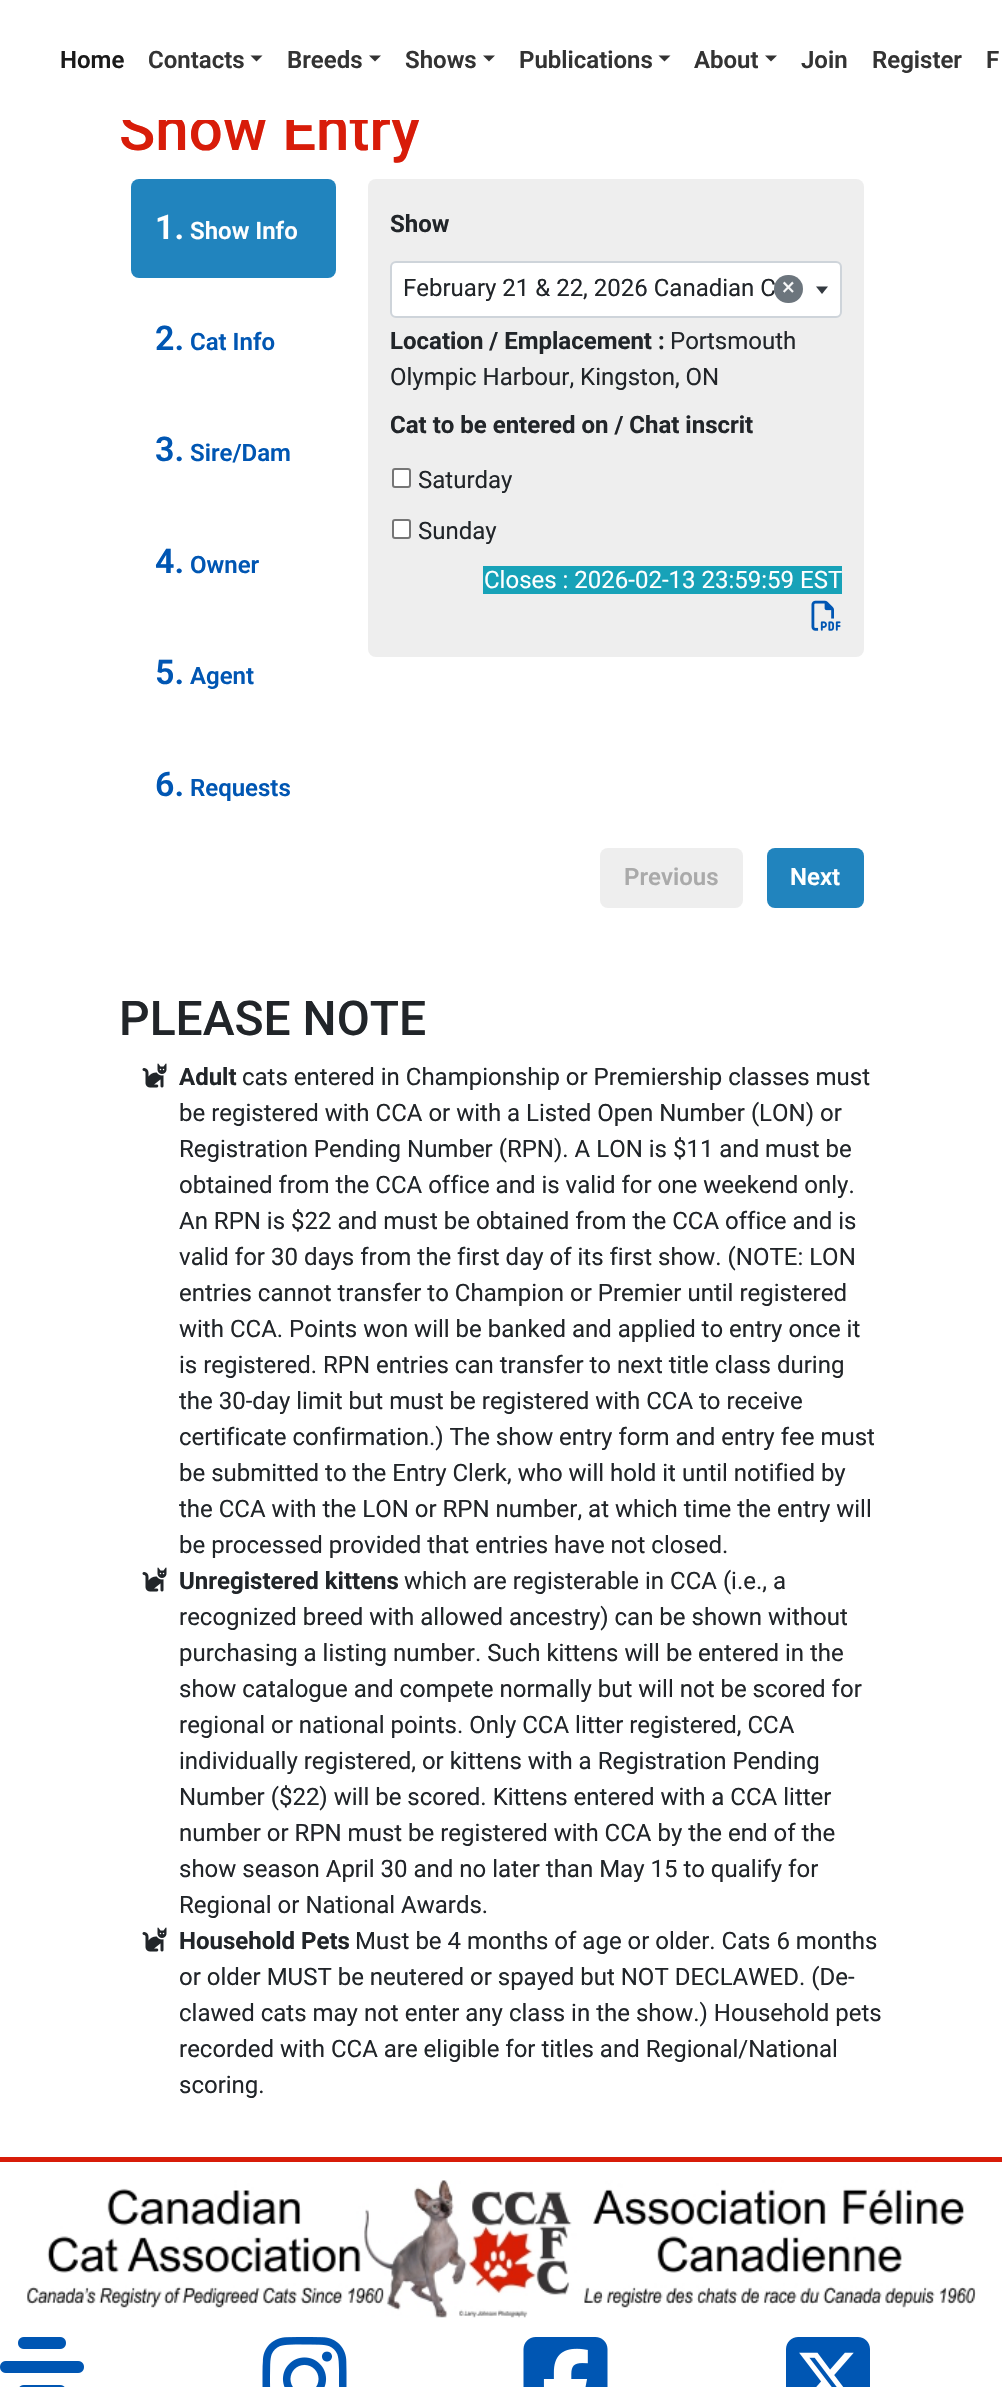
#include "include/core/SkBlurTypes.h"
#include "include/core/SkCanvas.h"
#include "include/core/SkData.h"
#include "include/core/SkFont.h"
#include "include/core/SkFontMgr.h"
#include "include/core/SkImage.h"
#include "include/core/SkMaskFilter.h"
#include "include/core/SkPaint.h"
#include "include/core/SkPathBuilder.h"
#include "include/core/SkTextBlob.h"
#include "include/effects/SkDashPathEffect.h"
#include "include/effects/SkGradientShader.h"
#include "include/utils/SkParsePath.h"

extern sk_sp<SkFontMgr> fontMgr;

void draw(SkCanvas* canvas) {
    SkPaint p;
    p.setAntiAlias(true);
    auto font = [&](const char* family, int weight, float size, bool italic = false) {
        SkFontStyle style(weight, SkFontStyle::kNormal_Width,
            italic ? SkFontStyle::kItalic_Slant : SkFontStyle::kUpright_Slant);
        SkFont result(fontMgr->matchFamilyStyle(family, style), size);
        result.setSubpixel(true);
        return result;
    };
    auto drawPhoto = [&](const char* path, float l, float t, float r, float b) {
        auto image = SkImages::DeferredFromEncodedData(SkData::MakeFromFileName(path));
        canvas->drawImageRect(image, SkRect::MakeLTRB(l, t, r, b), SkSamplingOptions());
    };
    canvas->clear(0xFFFFFFFF);
    auto font1 = font("Roboto", 500, 60);
    p.setColor(0xFFD81C09);
    canvas->drawString("Show Entry", 119, 150, font1, p);
    p.setColor(0xFFFFFFFF);
    canvas->drawRect(SkRect::MakeLTRB(122, 105, 420, 120), p);
    auto font2 = font("Roboto", 600, 24);
    p.setColor(0xFF1A1A1A);
    canvas->drawString("Home", 60, 68, font2, p);
    p.setColor(0xFF333333);
    canvas->drawString("Contacts", 148, 68, font2, p);
    canvas->drawPath(SkPathBuilder().moveTo(250.5f, 55.5f).lineTo(262.5f, 55.5f).lineTo(256.5f, 61.5f).close().detach(), p);
    canvas->drawString("Breeds", 287, 68, font2, p);
    canvas->drawPath(SkPathBuilder().moveTo(369, 55.5f).lineTo(381, 55.5f).lineTo(375, 61.5f).close().detach(), p);
    canvas->drawString("Shows", 405, 68, font2, p);
    canvas->drawPath(SkPathBuilder().moveTo(483, 55.5f).lineTo(495, 55.5f).lineTo(489, 61.5f).close().detach(), p);
    canvas->drawString("Publications", 519, 68, font2, p);
    canvas->drawPath(SkPathBuilder().moveTo(658.5f, 55.5f).lineTo(670.5f, 55.5f).lineTo(664.5f, 61.5f).close().detach(), p);
    canvas->drawString("About", 694, 68, font2, p);
    canvas->drawPath(SkPathBuilder().moveTo(765, 55.5f).lineTo(777, 55.5f).lineTo(771, 61.5f).close().detach(), p);
    {
        const struct { const char* s; float x, y; } items[] = {
            {"Join", 801, 68},
            {"Register", 872, 68},
            {"F", 986, 68},
        };
        for (auto [s, x, y] : items) {
            canvas->drawString(s, x, y, font2, p);
        }
    }
    p.setColor(0xFF2184BE);
    canvas->drawRoundRect(SkRect::MakeLTRB(131, 179, 336, 278), 8, 8, p);
    auto font3 = font("Roboto", 600, 34);
    p.setColor(0xFFFFFFFF);
    canvas->drawString("1.", 155, 239, font3, p);
    canvas->drawString("Show Info", 190, 239, font2, p);
    p.setColor(0xFF0056B3);
    canvas->drawString("2.", 155, 350, font3, p);
    canvas->drawString("Cat Info", 190, 350, font2, p);
    canvas->drawString("3.", 155, 461, font3, p);
    canvas->drawString("Sire/Dam", 190, 461, font2, p);
    canvas->drawString("4.", 155, 573, font3, p);
    canvas->drawString("Owner", 190, 573, font2, p);
    canvas->drawString("5.", 155, 684, font3, p);
    canvas->drawString("Agent", 190, 684, font2, p);
    canvas->drawString("6.", 155, 796, font3, p);
    canvas->drawString("Requests", 190, 796, font2, p);
    p.setColor(0xFFEEEEEE);
    canvas->drawRoundRect(SkRect::MakeLTRB(368, 179, 864, 657), 8, 8, p);
    auto font4 = font("Roboto", 700, 24);
    p.setColor(0xFF212529);
    canvas->drawString("Show", 390, 232, font4, p);
    p.setColor(0xFFFFFFFF);
    canvas->drawRoundRect(SkRect::MakeLTRB(391, 262, 841, 317), 5, 5, p);
    p.setStyle(SkPaint::kStroke_Style);
    p.setStrokeWidth(2);
    p.setColor(0xFFCED4DA);
    canvas->drawRoundRect(SkRect::MakeLTRB(391, 262, 841, 317), 5, 5, p);
    auto font5 = font("Roboto", 400, 24);
    p.setStyle(SkPaint::kFill_Style);
    p.setColor(0xFF212529);
    canvas->drawString("February 21 & 22, 2026 Canadian C", 403, 296, font5, p);
    p.setColor(0xFF6C757D);
    canvas->drawRoundRect(SkRect::MakeLTRB(774, 275, 803, 303), 14, 14, p);
    p.setColor(0xFFF8F9FA);
    canvas->drawString("×", 782, 295, font5, p);
    p.setColor(0xFF343A40);
    canvas->drawPath(SkPathBuilder().moveTo(816, 286.5f).lineTo(828, 286.5f).lineTo(822, 294).close().detach(), p);
    p.setColor(0xFF212529);
    canvas->drawString("Location / Emplacement :", 390, 349, font4, p);
    canvas->drawString("Portsmouth", 670, 349, font5, p);
    canvas->drawString("Olympic Harbour, Kingston, ON", 390, 385, font5, p);
    canvas->drawString("Cat to be entered on / Chat inscrit", 390, 433, font4, p);
    p.setColor(0xFFFFFFFF);
    canvas->drawRoundRect(SkRect::MakeLTRB(393, 469, 410, 487), 2, 2, p);
    p.setStyle(SkPaint::kStroke_Style);
    p.setColor(0xFF767676);
    canvas->drawRoundRect(SkRect::MakeLTRB(393, 469, 410, 487), 2, 2, p);
    p.setStyle(SkPaint::kFill_Style);
    p.setColor(0xFF212529);
    canvas->drawString("Saturday", 418, 488, font5, p);
    p.setColor(0xFFFFFFFF);
    canvas->drawRoundRect(SkRect::MakeLTRB(393, 520, 410, 538), 2, 2, p);
    p.setStyle(SkPaint::kStroke_Style);
    p.setColor(0xFF767676);
    canvas->drawRoundRect(SkRect::MakeLTRB(393, 520, 410, 538), 2, 2, p);
    p.setStyle(SkPaint::kFill_Style);
    p.setColor(0xFF212529);
    canvas->drawString("Sunday", 418, 539, font5, p);
    p.setColor(0xFF17A2B8);
    canvas->drawRect(SkRect::MakeLTRB(483, 566, 842, 594), p);
    p.setColor(0xFFFFFFFF);
    canvas->drawString("Closes : 2026-02-13 23:59:59 EST", 484, 588, font5, p);
    drawPhoto("media/1.png", 811, 600, 841, 631);
    p.setColor(0xFFEEEEEE);
    canvas->drawRoundRect(SkRect::MakeLTRB(600, 848, 743, 908), 8, 8, p);
    p.setColor(0xFFAAAAAA);
    canvas->drawString("Previous", 624, 885, font2, p);
    p.setColor(0xFF2184BE);
    canvas->drawRoundRect(SkRect::MakeLTRB(767, 848, 864, 908), 8, 8, p);
    p.setColor(0xFFFFFFFF);
    canvas->drawString("Next", 790, 885, font2, p);
    auto font6 = font("Roboto", 500, 48);
    p.setColor(0xFF212529);
    canvas->drawString("PLEASE NOTE", 119, 1035, font6, p);
    drawPhoto("media/2.png", 142, 1063, 167, 1088);
    canvas->drawString("Adult", 179, 1085, font4, p);
    {
        const struct { const char* s; float x, y; } items[] = {
            {"cats entered in Championship or Premiership classes must", 242, 1085},
            {"be registered with CCA or with a Listed Open Number (LON) or", 179, 1121},
            {"Registration Pending Number (RPN). A LON is $11 and must be", 179, 1157},
            {"obtained from the CCA office and is valid for one weekend only.", 179, 1193},
            {"An RPN is $22 and must be obtained from the CCA office and is", 179, 1229},
            {"valid for 30 days from the first day of its first show. (NOTE: LON", 179, 1265},
            {"entries cannot transfer to Champion or Premier until registered", 179, 1301},
            {"with CCA. Points won will be banked and applied to entry once it", 179, 1337},
            {"is registered. RPN entries can transfer to next title class during", 179, 1373},
            {"the 30-day limit but must be registered with CCA to receive", 179, 1409},
            {"certificate confirmation.) The show entry form and entry fee must", 179, 1445},
            {"be submitted to the Entry Clerk, who will hold it until notified by", 179, 1481},
            {"the CCA with the LON or RPN number, at which time the entry will", 179, 1517},
            {"be processed provided that entries have not closed.", 179, 1553},
        };
        for (auto [s, x, y] : items) {
            canvas->drawString(s, x, y, font5, p);
        }
    }
    drawPhoto("media/2.png", 142, 1567, 167, 1592);
    canvas->drawString("Unregistered kittens", 179, 1589, font4, p);
    {
        const struct { const char* s; float x, y; } items[] = {
            {"which are registerable in CCA (i.e., a", 404, 1589},
            {"recognized breed with allowed ancestry) can be shown without", 179, 1625},
            {"purchasing a listing number. Such kittens will be entered in the", 179, 1661},
            {"show catalogue and compete normally but will not be scored for", 179, 1697},
            {"regional or national points. Only CCA litter registered, CCA", 179, 1733},
            {"individually registered, or kittens with a Registration Pending", 179, 1769},
            {"Number ($22) will be scored. Kittens entered with a CCA litter", 179, 1805},
            {"number or RPN must be registered with CCA by the end of the", 179, 1841},
            {"show season April 30 and no later than May 15 to qualify for", 179, 1877},
            {"Regional or National Awards.", 179, 1913},
        };
        for (auto [s, x, y] : items) {
            canvas->drawString(s, x, y, font5, p);
        }
    }
    drawPhoto("media/2.png", 142, 1927, 167, 1952);
    canvas->drawString("Household Pets", 179, 1949, font4, p);
    {
        const struct { const char* s; float x, y; } items[] = {
            {"Must be 4 months of age or older. Cats 6 months", 355, 1949},
            {"or older MUST be neutered or spayed but NOT DECLAWED. (De-", 179, 1985},
            {"clawed cats may not enter any class in the show.) Household pets", 179, 2021},
            {"recorded with CCA are eligible for titles and Regional/National", 179, 2057},
            {"scoring.", 179, 2093},
        };
        for (auto [s, x, y] : items) {
            canvas->drawString(s, x, y, font5, p);
        }
    }
    p.setColor(0xFFD81C09);
    canvas->drawRect(SkRect::MakeLTRB(0, 2157, 1002, 2162), p);
    drawPhoto("media/3.png", 27, 2180, 976, 2318);
    drawPhoto("media/4.png", 0, 2337, 84, 2387);
    drawPhoto("media/5.png", 262, 2337, 347, 2387);
    drawPhoto("media/6.png", 523, 2337, 608, 2387);
    drawPhoto("media/7.png", 786, 2337, 870, 2387);
}
